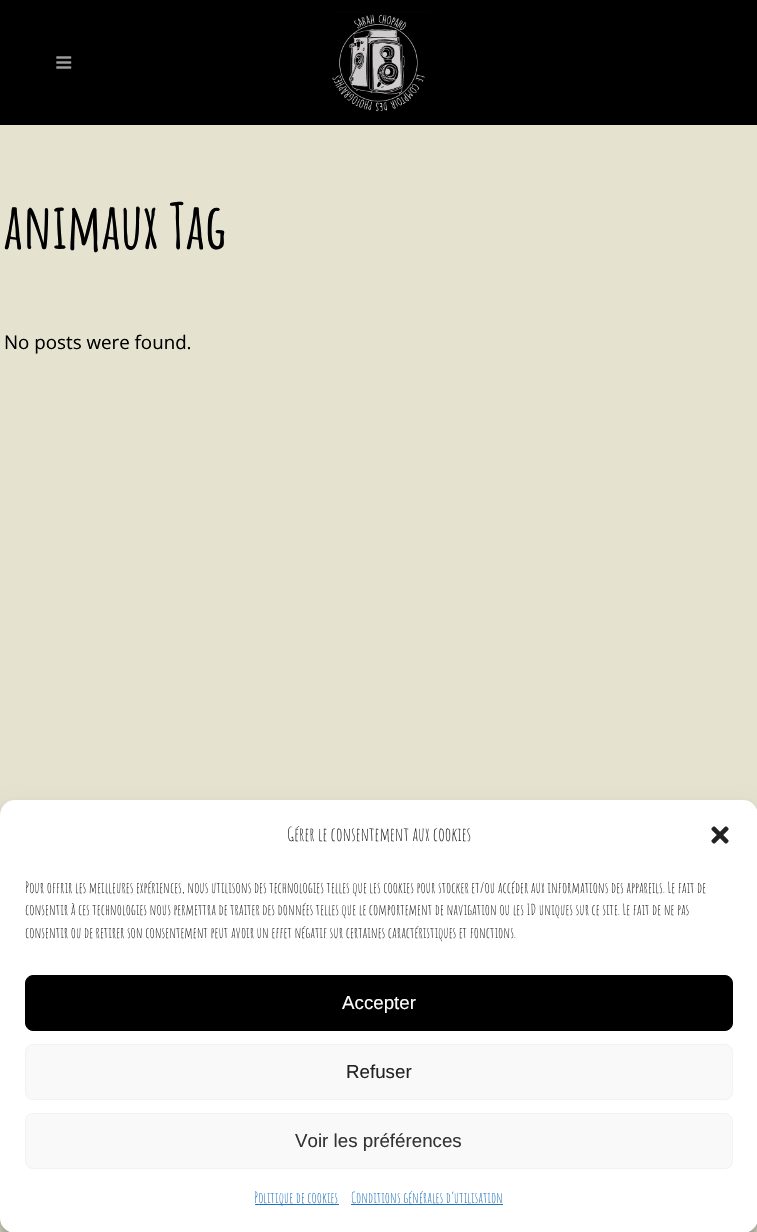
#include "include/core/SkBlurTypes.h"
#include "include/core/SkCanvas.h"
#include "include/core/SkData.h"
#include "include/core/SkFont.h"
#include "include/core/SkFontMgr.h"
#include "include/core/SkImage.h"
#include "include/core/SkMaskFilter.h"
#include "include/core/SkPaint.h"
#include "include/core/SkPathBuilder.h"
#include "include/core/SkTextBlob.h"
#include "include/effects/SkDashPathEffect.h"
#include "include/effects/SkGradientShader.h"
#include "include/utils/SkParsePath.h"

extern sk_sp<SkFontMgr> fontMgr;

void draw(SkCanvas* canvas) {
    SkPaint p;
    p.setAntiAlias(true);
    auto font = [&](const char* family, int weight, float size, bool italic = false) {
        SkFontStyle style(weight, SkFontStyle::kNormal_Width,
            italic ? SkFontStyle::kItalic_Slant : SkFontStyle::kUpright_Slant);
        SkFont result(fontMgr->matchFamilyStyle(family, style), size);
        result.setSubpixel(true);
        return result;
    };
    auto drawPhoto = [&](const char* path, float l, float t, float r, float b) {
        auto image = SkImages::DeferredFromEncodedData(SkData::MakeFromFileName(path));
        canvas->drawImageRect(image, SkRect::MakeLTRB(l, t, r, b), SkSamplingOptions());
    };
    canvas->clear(0xFFE5E3D0);
    p.setColor(0xFF000000);
    canvas->drawRect(SkRect::MakeLTRB(0, 0, 757, 125), p);
    drawPhoto("media/1.png", 56, 56, 72, 69);
    drawPhoto("media/2.png", 332, 12, 429, 112);
    auto font1 = font("Amatic SC", 700, 62.5f);
    canvas->drawString("animaux Tag", 4, 249, font1, p);
    auto font2 = font("Open Sans", 400, 18.75f);
    canvas->drawString("No posts were found.", 4, 349, font2, p);
    p.setColor(0x3B000000);
    p.setMaskFilter(SkMaskFilter::MakeBlur(kNormal_SkBlurStyle, 4));
    canvas->drawRoundRect(SkRect::MakeLTRB(0, 808, 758, 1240), 15, 15, p);
    p.setMaskFilter(nullptr);
    p.setColor(0x30000000);
    p.setMaskFilter(SkMaskFilter::MakeBlur(kNormal_SkBlurStyle, 12.5f));
    canvas->drawRoundRect(SkRect::MakeLTRB(0, 813, 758, 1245), 15, 15, p);
    p.setMaskFilter(nullptr);
    p.setColor(0xFFFFFFFF);
    canvas->drawRoundRect(SkRect::MakeLTRB(0, 800, 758, 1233), 15, 15, p);
    auto font3 = font("Amatic SC", 400, 18.75f);
    p.setColor(0xFF222222);
    canvas->drawString("Gérer le consentement aux cookies", 287, 841, font3, p);
    drawPhoto("media/3.png", 711, 826, 729, 844);
    auto font4 = font("Amatic SC", 400, 15);
    {
        const struct { const char* s; float x, y; } items[] = {
            {"Pour offrir les meilleures expériences, nous utilisons des technologies telles que les cookies pour stocker et/ou accéder aux informations des appareils. Le fait de", 25, 893},
            {"consentir à ces technologies nous permettra de traiter des données telles que le comportement de navigation ou les ID uniques sur ce site. Le fait de ne pas", 25, 915},
            {"consentir ou de retirer son consentement peut avoir un effet négatif sur certaines caractéristiques et fonctions.", 25, 938},
        };
        for (auto [s, x, y] : items) {
            canvas->drawString(s, x, y, font4, p);
        }
    }
    p.setColor(0xFF000000);
    canvas->drawRoundRect(SkRect::MakeLTRB(25.5f, 975.5f, 732.5f, 1030.5f), 7.5f, 7.5f, p);
    p.setStyle(SkPaint::kStroke_Style);
    p.setStrokeWidth(1);
    canvas->drawRoundRect(SkRect::MakeLTRB(25.5f, 975.5f, 732.5f, 1030.5f), 7.5f, 7.5f, p);
    auto font5 = font("Liberation Sans", 400, 18.75f);
    p.setStyle(SkPaint::kFill_Style);
    p.setColor(0xFFFFFFFF);
    canvas->drawString("Accepter", 342, 1009, font5, p);
    p.setColor(0xFFF9F9F9);
    canvas->drawRoundRect(SkRect::MakeLTRB(25.5f, 1044.5f, 732.5f, 1099.5f), 7.5f, 7.5f, p);
    p.setStyle(SkPaint::kStroke_Style);
    p.setColor(0xFFF2F2F2);
    canvas->drawRoundRect(SkRect::MakeLTRB(25.5f, 1044.5f, 732.5f, 1099.5f), 7.5f, 7.5f, p);
    p.setStyle(SkPaint::kFill_Style);
    p.setColor(0xFF222222);
    canvas->drawString("Refuser", 346, 1078, font5, p);
    p.setColor(0xFFF9F9F9);
    canvas->drawRoundRect(SkRect::MakeLTRB(25.5f, 1113.5f, 732.5f, 1168.5f), 7.5f, 7.5f, p);
    p.setStyle(SkPaint::kStroke_Style);
    p.setColor(0xFFF2F2F2);
    canvas->drawRoundRect(SkRect::MakeLTRB(25.5f, 1113.5f, 732.5f, 1168.5f), 7.5f, 7.5f, p);
    p.setStyle(SkPaint::kFill_Style);
    p.setColor(0xFF333333);
    canvas->drawString("Voir les préférences", 295, 1147, font5, p);
    p.setColor(0xFF1E73BE);
    canvas->drawRect(SkRect::MakeLTRB(255, 1204, 339, 1205), p);
    canvas->drawString("Politique de cookies", 254, 1203, font4, p);
    canvas->drawString("Conditions générales d’utilisation", 351, 1203, font4, p);
    canvas->drawRect(SkRect::MakeLTRB(351, 1204, 503, 1205), p);
}
